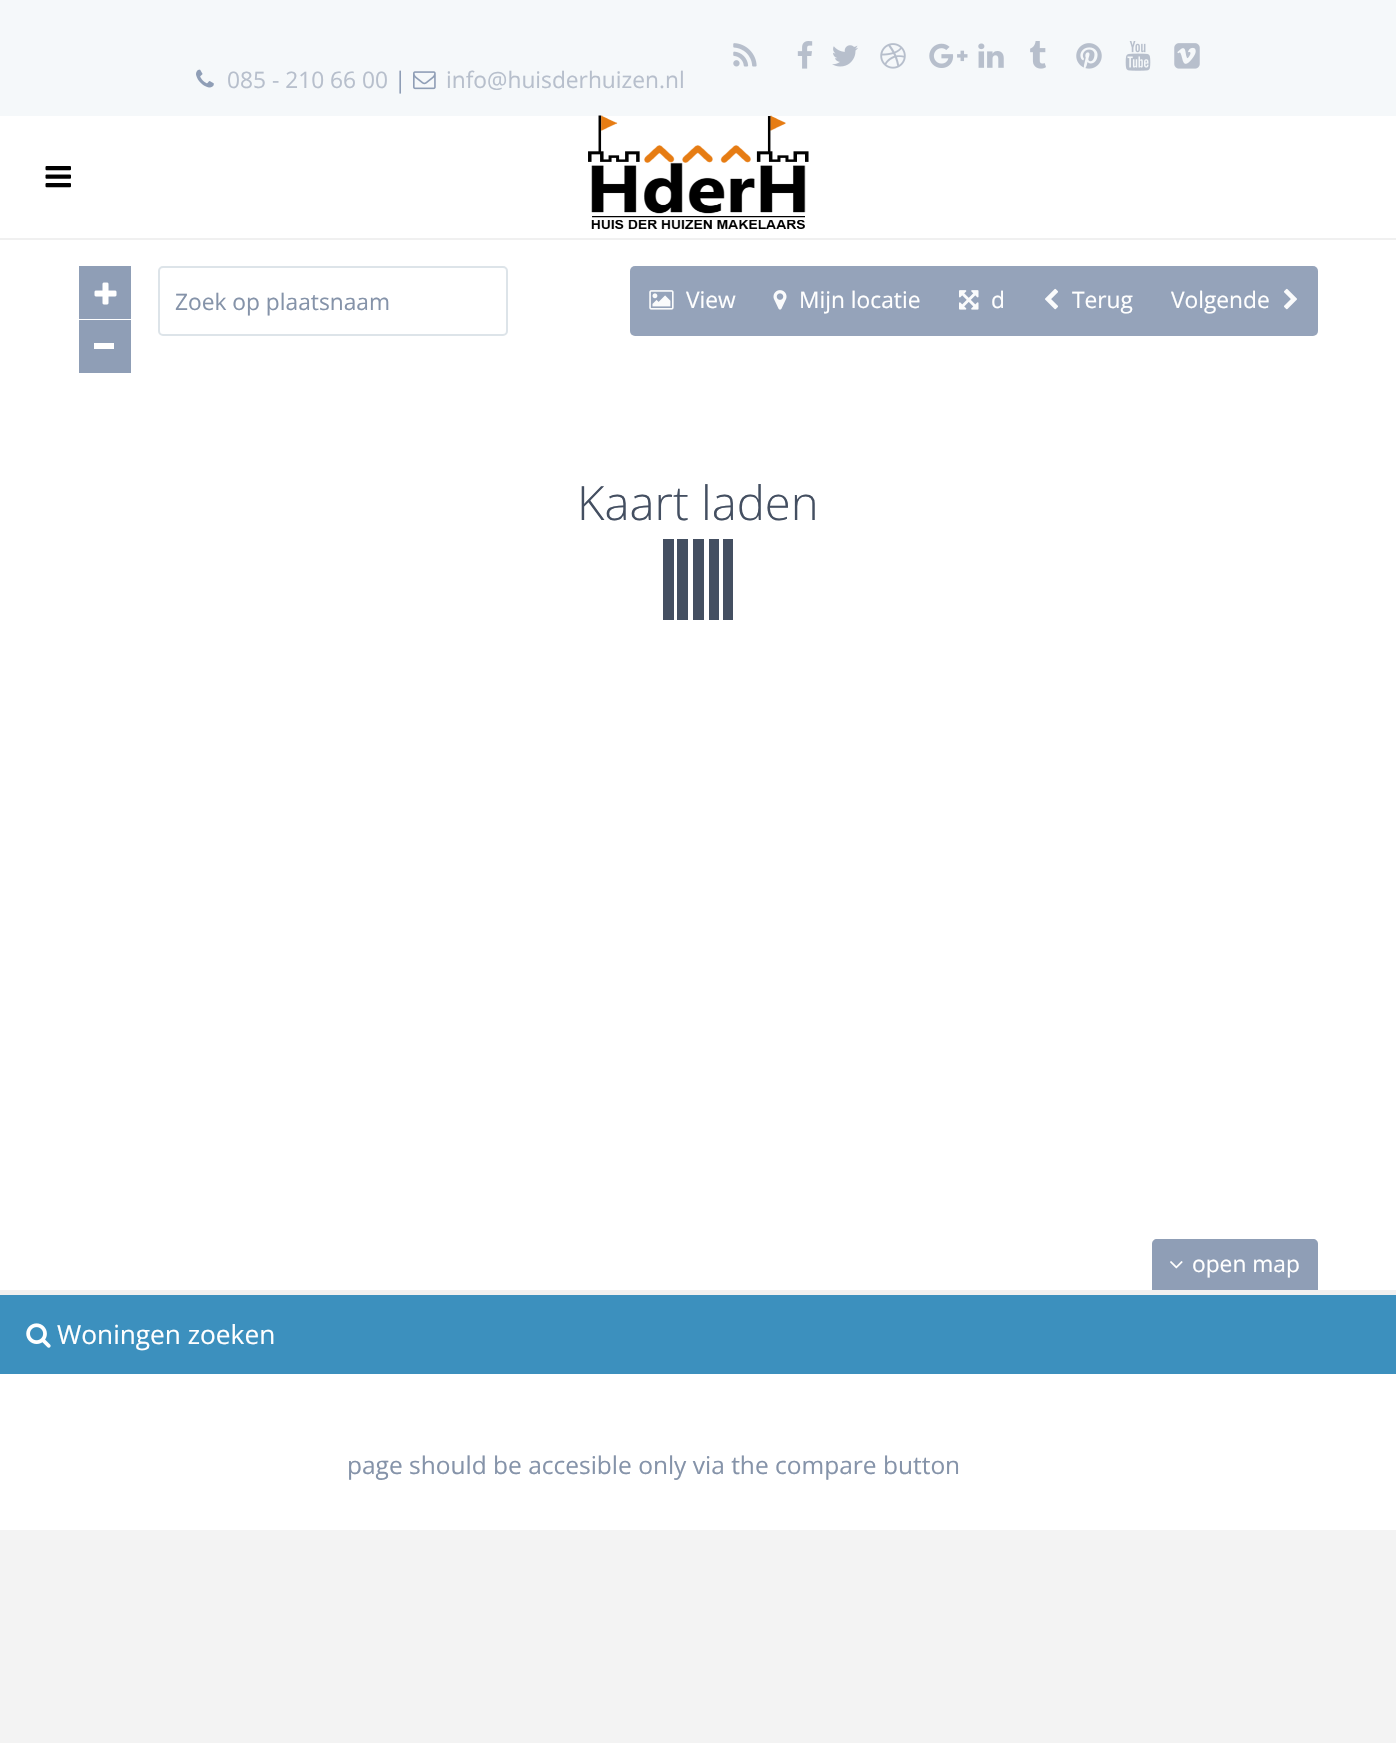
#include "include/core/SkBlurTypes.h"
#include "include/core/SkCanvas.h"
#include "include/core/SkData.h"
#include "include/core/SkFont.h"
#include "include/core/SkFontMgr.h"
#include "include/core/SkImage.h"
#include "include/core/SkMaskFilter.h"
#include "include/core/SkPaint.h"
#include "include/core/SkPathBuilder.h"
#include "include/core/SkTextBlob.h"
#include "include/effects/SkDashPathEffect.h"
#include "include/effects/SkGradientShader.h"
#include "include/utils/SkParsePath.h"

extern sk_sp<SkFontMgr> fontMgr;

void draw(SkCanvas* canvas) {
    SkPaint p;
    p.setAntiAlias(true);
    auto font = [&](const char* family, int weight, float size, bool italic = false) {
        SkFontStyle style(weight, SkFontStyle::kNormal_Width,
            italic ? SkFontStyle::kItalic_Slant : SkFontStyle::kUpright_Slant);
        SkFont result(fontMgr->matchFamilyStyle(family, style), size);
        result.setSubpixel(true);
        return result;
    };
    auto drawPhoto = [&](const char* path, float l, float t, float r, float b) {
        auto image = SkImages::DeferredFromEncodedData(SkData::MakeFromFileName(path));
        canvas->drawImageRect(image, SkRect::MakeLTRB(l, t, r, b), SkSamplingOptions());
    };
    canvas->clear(0xFFF3F3F3);
    {
        const struct { float l, t, r, b; SkColor color; } items[] = {
            {0, 116, 1396, 1530, 0xFFFFFFFF},
            {0, 238, 1396, 240, 0xFFF0F0F0},
            {0, 0, 1396, 116, 0xFFF5F8FA},
        };
        for (auto [l, t, r, b, color] : items) {
            p.setColor(color);
            canvas->drawRect(SkRect::MakeLTRB(l, t, r, b), p);
        }
    }
    drawPhoto("media/1.png", 733, 43, 757, 67);
    drawPhoto("media/2.png", 797, 41, 813, 69);
    drawPhoto("media/3.png", 832, 45, 858, 67);
    drawPhoto("media/4.png", 880, 43, 906, 69);
    drawPhoto("media/5.png", 929, 43, 968, 68);
    drawPhoto("media/6.png", 978, 43, 1004, 68);
    drawPhoto("media/7.png", 1030, 41, 1046, 69);
    drawPhoto("media/8.png", 1076, 43, 1102, 69);
    drawPhoto("media/9.png", 1125, 41, 1151, 71);
    drawPhoto("media/10.png", 1174, 43, 1200, 69);
    drawPhoto("media/11.png", 196, 69, 214, 88);
    auto font1 = font("Open Sans", 400, 22.75f);
    p.setColor(0xFFB7BFCC);
    canvas->drawString("085 - 210 66 00", 227, 88, font1, p);
    p.setColor(0xFF8F9EB6);
    canvas->drawString("|", 394, 88, font1, p);
    drawPhoto("media/12.png", 413, 71, 436, 90);
    p.setColor(0xFFB7BFCC);
    canvas->drawString("info@huisderhuizen.nl", 446, 88, font1, p);
    drawPhoto("media/13.png", 45, 166, 71, 188);
    drawPhoto("media/14.png", 588, 115, 809, 229);
    p.setColor(0xFF8F9EB6);
    canvas->drawRect(SkRect::MakeLTRB(79, 266, 131, 319), p);
    drawPhoto("media/15.png", 94, 282, 117, 305);
    p.setStyle(SkPaint::kStroke_Style);
    p.setStrokeWidth(2);
    p.setColor(0xFFDDE4E9);
    canvas->drawRoundRect(SkRect::MakeLTRB(159, 267, 507, 335), 4, 4, p);
    p.setStyle(SkPaint::kFill_Style);
    p.setColor(0xFF8593A9);
    canvas->drawString("Zoek op plaatsnaam", 175, 310, font1, p);
    p.setColor(0xFF95A3BA);
    canvas->drawRoundRect(SkRect::MakeLTRB(630, 266, 1318, 336), 5, 5, p);
    drawPhoto("media/16.png", 649, 290, 674, 310);
    p.setColor(0xFFFFFFFF);
    canvas->drawString("View", 686, 308, font1, p);
    drawPhoto("media/17.png", 773, 290, 787, 310);
    canvas->drawString("Mijn locatie", 799, 308, font1, p);
    drawPhoto("media/18.png", 959, 290, 979, 310);
    canvas->drawString("d", 991, 308, font1, p);
    drawPhoto("media/19.png", 1045, 288, 1058, 310);
    canvas->drawString("Terug", 1072, 308, font1, p);
    canvas->drawString("Volgende", 1171, 308, font1, p);
    drawPhoto("media/20.png", 1284, 288, 1297, 310);
    p.setColor(0xFF8F9EB6);
    canvas->drawRect(SkRect::MakeLTRB(79, 320, 131, 373), p);
    p.setColor(0xFFFFFFFF);
    canvas->drawRect(SkRect::MakeLTRB(94, 343, 114, 349), p);
    p.setColor(0xFF8F9EB6);
    canvas->drawPath(SkPathBuilder().moveTo(1157, 1239).lineTo(1313, 1239).cubicTo(1316, 1239, 1318, 1241, 1318, 1244).lineTo(1318, 1290).lineTo(1152, 1290).lineTo(1152, 1244).cubicTo(1152, 1241, 1154, 1239, 1157, 1239).close().detach(), p);
    drawPhoto("media/21.png", 1170, 1261, 1183, 1269);
    p.setColor(0xFFFFFFFF);
    canvas->drawString("open map", 1192, 1272, font1, p);
    auto font2 = font("Open Sans", 300, 47.25f);
    p.setColor(0xFF444F61);
    canvas->drawString("Kaart laden", 577, 520, font2, p);
    {
        const struct { float l, t, r, b; SkColor color; } items[] = {
            {663, 539, 674, 620, 0xFF444F61},
            {677, 539, 688, 620, 0xFF444F61},
            {693, 539, 704, 620, 0xFF444F61},
            {709, 539, 719, 620, 0xFF444F61},
            {723, 539, 733, 620, 0xFF444F61},
            {0, 1290, 1396, 1295, 0xFFF0F0F0},
            {0, 1295, 1396, 1374, 0xFF3C90BE},
        };
        for (auto [l, t, r, b, color] : items) {
            p.setColor(color);
            canvas->drawRect(SkRect::MakeLTRB(l, t, r, b), p);
        }
    }
    drawPhoto("media/22.png", 26, 1323, 51, 1348);
    auto font3 = font("Open Sans", 400, 26.25f);
    p.setColor(0xFFFFFFFF);
    canvas->drawString("Woningen zoeken", 57, 1344, font3, p);
    auto font4 = font("Open Sans", 400, 24.5f);
    p.setColor(0xFF8593A9);
    canvas->drawString("page should be accesible only via the compare button", 347, 1474, font4, p);
}
